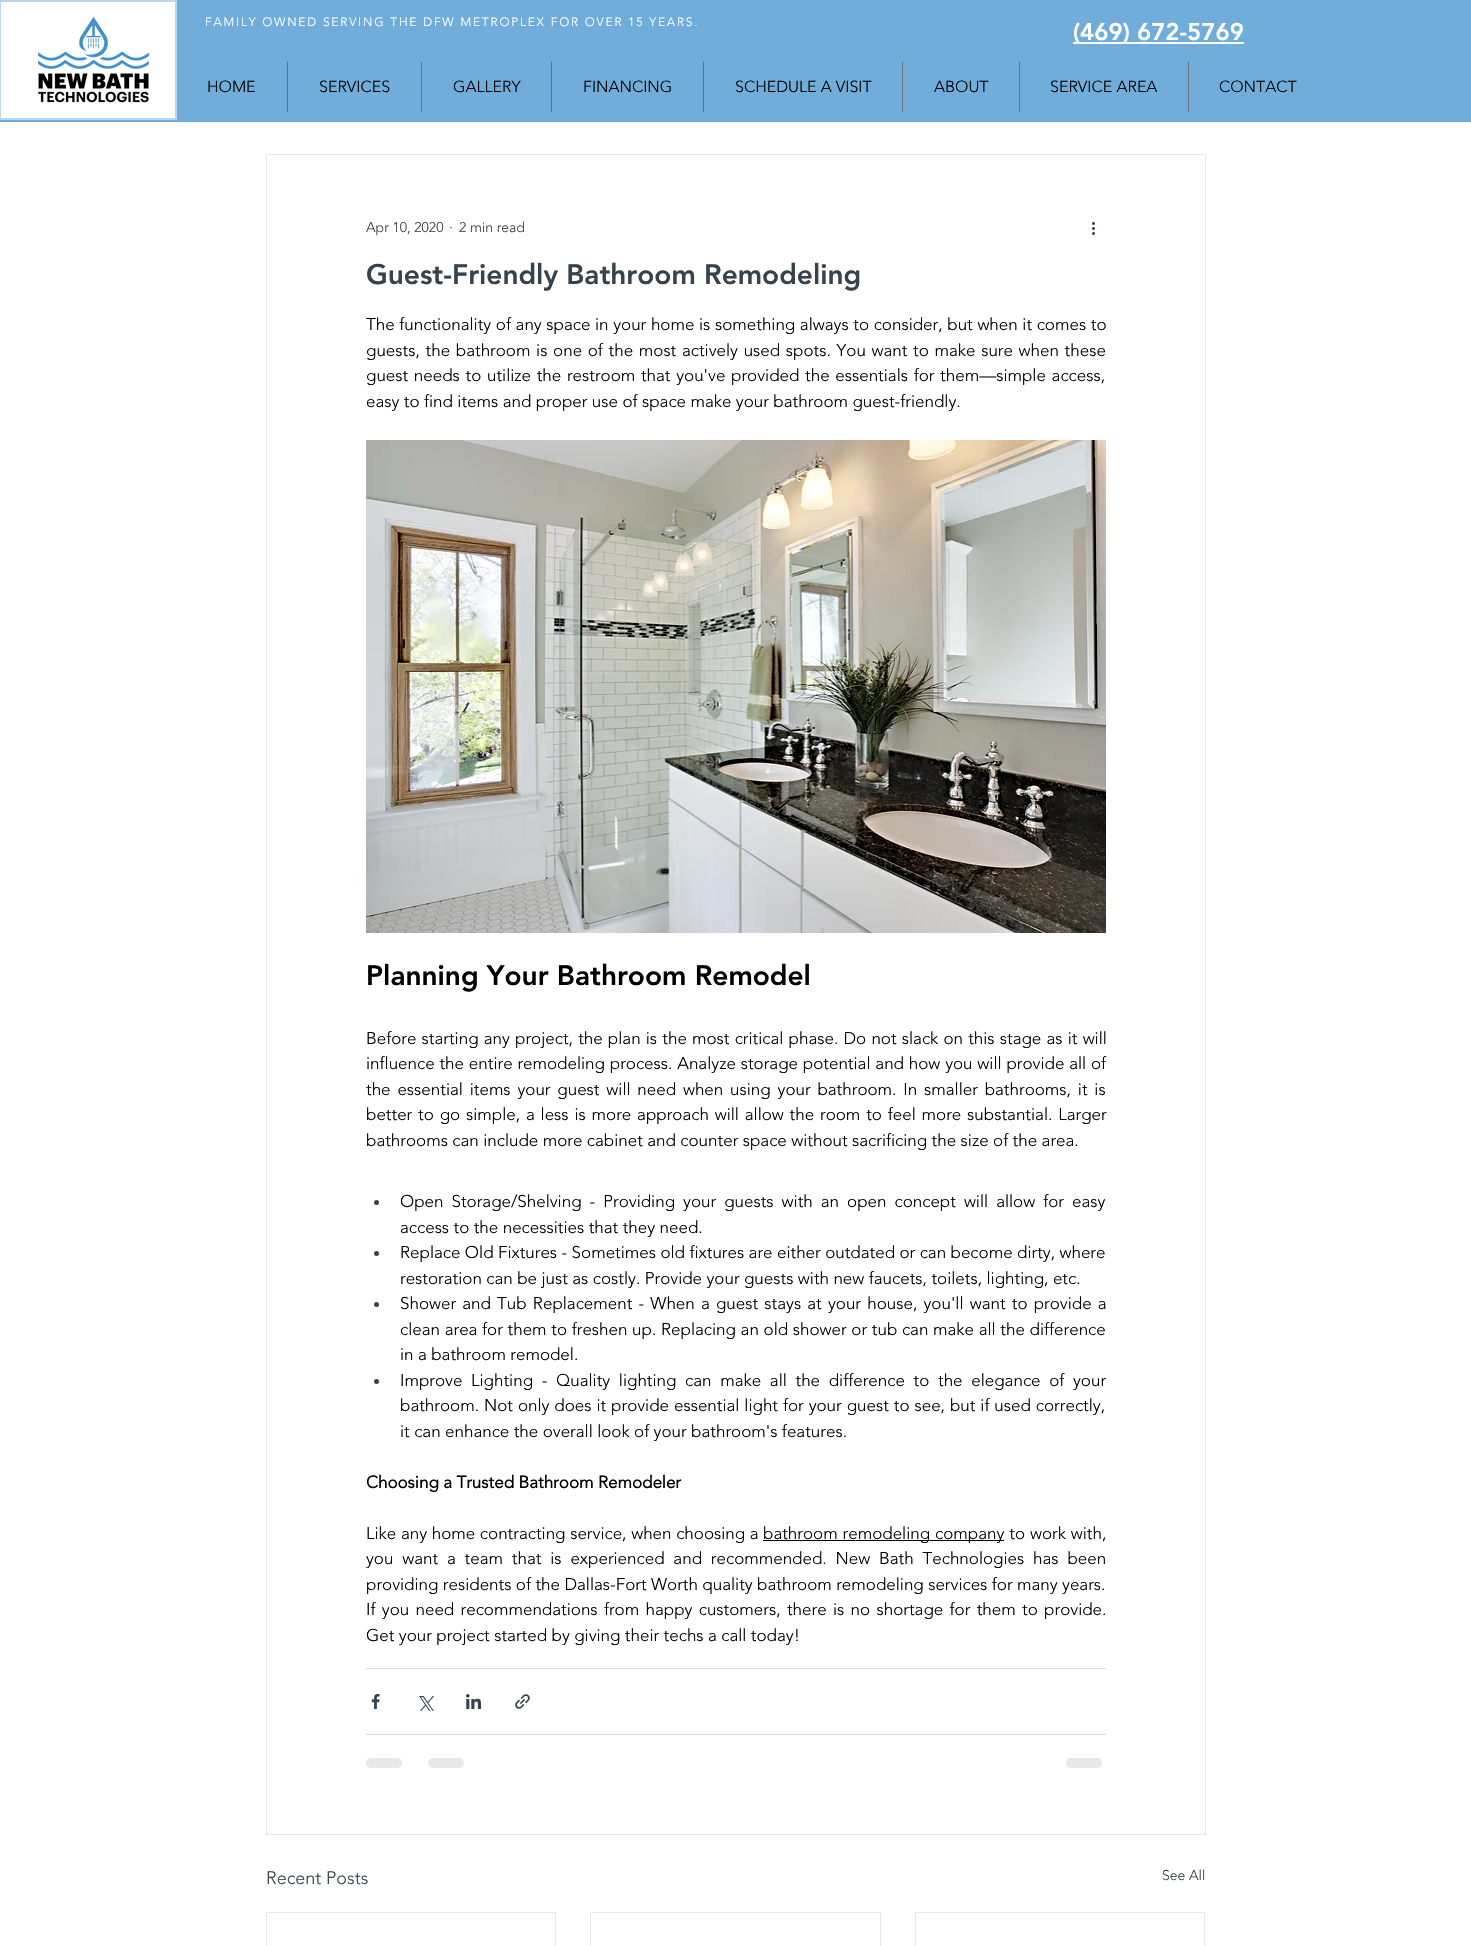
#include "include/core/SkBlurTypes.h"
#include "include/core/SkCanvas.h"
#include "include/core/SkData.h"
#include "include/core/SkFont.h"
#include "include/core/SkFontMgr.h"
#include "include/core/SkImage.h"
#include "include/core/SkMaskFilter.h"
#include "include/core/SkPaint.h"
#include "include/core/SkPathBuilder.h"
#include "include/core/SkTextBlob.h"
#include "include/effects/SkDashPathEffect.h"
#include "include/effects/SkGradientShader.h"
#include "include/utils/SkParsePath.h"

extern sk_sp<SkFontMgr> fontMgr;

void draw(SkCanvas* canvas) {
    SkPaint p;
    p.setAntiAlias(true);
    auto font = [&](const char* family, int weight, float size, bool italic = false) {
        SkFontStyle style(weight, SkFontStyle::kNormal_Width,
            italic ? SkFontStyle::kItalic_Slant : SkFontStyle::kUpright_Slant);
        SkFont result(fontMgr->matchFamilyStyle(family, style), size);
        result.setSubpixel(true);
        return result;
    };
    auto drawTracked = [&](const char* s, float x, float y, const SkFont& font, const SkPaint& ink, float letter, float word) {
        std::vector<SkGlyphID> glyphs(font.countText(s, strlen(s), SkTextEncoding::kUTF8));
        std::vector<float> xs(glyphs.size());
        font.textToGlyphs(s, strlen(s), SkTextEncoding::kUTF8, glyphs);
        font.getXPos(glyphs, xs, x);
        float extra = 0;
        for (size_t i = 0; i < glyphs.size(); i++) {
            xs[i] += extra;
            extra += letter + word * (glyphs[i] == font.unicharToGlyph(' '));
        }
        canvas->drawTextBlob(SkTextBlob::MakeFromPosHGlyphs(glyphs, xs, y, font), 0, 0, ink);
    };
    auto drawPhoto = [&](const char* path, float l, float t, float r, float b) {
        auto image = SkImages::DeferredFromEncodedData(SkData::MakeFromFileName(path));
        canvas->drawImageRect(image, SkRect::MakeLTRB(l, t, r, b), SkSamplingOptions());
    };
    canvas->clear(0xFFFFFFFF);
    p.setColor(0xFF70ADDA);
    canvas->drawRect(SkRect::MakeLTRB(0, 0, 1471, 122), p);
    p.setColor(0xFFFFFFFF);
    canvas->drawRect(SkRect::MakeLTRB(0, 1, 176, 119), p);
    p.setStyle(SkPaint::kStroke_Style);
    p.setStrokeWidth(2);
    p.setColor(0xFFB8D7EF);
    canvas->drawRect(SkRect::MakeLTRB(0, 1, 176, 119), p);
    drawPhoto("media/1.png", 37, 16, 150, 103);
    auto font1 = font("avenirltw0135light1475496", 300, 12);
    p.setStyle(SkPaint::kFill_Style);
    p.setColor(0xFFFFFFFF);
    drawTracked("FAMILY OWNED SERVING THE DFW METROPLEX FOR OVER 15 YEARS.", 205, 26, font1, p, 1.8f, 0);
    canvas->drawRect(SkRect::MakeLTRB(1073, 42, 1244, 44), p);
    auto font2 = font("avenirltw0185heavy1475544", 900, 24);
    canvas->drawString("(469) 672-5769", 1073, 40, font2, p);
    auto font3 = font("avenirltw0135light1475496", 300, 16);
    p.setColor(0xFF000000);
    canvas->drawString("HOME", 207, 92, font3, p);
    p.setColor(0xFF677279);
    canvas->drawRect(SkRect::MakeLTRB(287, 62, 288, 112), p);
    p.setColor(0xFF000000);
    canvas->drawString("SERVICES", 319, 92, font3, p);
    p.setColor(0xFF677279);
    canvas->drawRect(SkRect::MakeLTRB(421, 62, 422, 112), p);
    p.setColor(0xFF000000);
    canvas->drawString("GALLERY", 453, 92, font3, p);
    p.setColor(0xFF677279);
    canvas->drawRect(SkRect::MakeLTRB(551, 62, 552, 112), p);
    p.setColor(0xFF000000);
    canvas->drawString("FINANCING", 583, 92, font3, p);
    p.setColor(0xFF677279);
    canvas->drawRect(SkRect::MakeLTRB(703, 62, 704, 112), p);
    p.setColor(0xFF000000);
    canvas->drawString("SCHEDULE A VISIT", 735, 92, font3, p);
    p.setColor(0xFF677279);
    canvas->drawRect(SkRect::MakeLTRB(902, 62, 903, 112), p);
    p.setColor(0xFF000000);
    canvas->drawString("ABOUT", 934, 92, font3, p);
    p.setColor(0xFF677279);
    canvas->drawRect(SkRect::MakeLTRB(1019, 62, 1020, 112), p);
    p.setColor(0xFF000000);
    canvas->drawString("SERVICE AREA", 1050, 92, font3, p);
    p.setColor(0xFF677279);
    canvas->drawRect(SkRect::MakeLTRB(1188, 62, 1189, 112), p);
    p.setColor(0xFF000000);
    canvas->drawString("CONTACT", 1219, 92, font3, p);
    p.setStyle(SkPaint::kStroke_Style);
    p.setStrokeWidth(1);
    p.setColor(0xFFE8E6E6);
    canvas->drawRect(SkRect::MakeLTRB(266.5f, 154.5f, 1205.5f, 1834.5f), p);
    auto font4 = font("avenirltw0135light1475496", 300, 14);
    p.setStyle(SkPaint::kFill_Style);
    p.setColor(0xFF36434C);
    {
        const struct { const char* s; float x, y; } items[] = {
            {"Apr 10, 2020", 366, 232},
            {"·", 449, 232},
            {"2 min read", 459, 232},
        };
        for (auto [s, x, y] : items) {
            canvas->drawString(s, x, y, font4, p);
        }
    }
    drawPhoto("media/2.png", 1092, 222, 1095, 235);
    auto font5 = font("avenirltw0185heavy1475544", 900, 28);
    canvas->drawString("Guest-Friendly Bathroom Remodeling", 366, 284, font5, p);
    auto font6 = font("avenirltw0135light1475496", 300, 17);
    p.setColor(0xFF000000);
    drawTracked("The functionality of any space in your home is something always to consider, but when it comes to", 366, 330, font6, p, 0, 0.2f);
    drawTracked("guests, the bathroom is one of the most actively used spots. You want to make sure when these", 366, 356, font6, p, 0, 1.25f);
    drawTracked("guest needs to utilize the restroom that you've provided the essentials for them—simple access,", 366, 381, font6, p, 0, 1.25f);
    canvas->drawString("easy to find items and proper use of space make your bathroom guest-friendly.", 366, 407, font6, p);
    drawPhoto("media/3.png", 366, 440, 1106, 933);
    canvas->drawString("Planning Your Bathroom Remodel", 366, 985, font5, p);
    drawTracked("Before starting any project, the plan is the most critical phase. Do not slack on this stage as it will", 366, 1044, font6, p, 0, 0.75f);
    drawTracked("influence the entire remodeling process. Analyze storage potential and how you will provide all of", 366, 1069, font6, p, 0, 0.4f);
    drawTracked("the essential items your guest will need when using your bathroom. In smaller bathrooms, it is", 366, 1095, font6, p, 0, 2.4f);
    drawTracked("better to go simple, a less is more approach will allow the room to feel more substantial. Larger", 366, 1120, font6, p, 0, 1.4f);
    canvas->drawString("bathrooms can include more cabinet and counter space without sacrificing the size of the area.", 366, 1146, font6, p);
    p.setColor(0xFF36434C);
    canvas->drawCircle(376.5f, 1202.5f, 2.5f, p);
    p.setColor(0xFF000000);
    drawTracked("Open Storage/Shelving - Providing your guests with an open concept will allow for easy", 400, 1207, font6, p, 0, 3.6f);
    canvas->drawString("access to the necessities that they need.", 400, 1233, font6, p);
    p.setColor(0xFF36434C);
    canvas->drawCircle(376.5f, 1253.5f, 2.5f, p);
    p.setColor(0xFF000000);
    canvas->drawString("Replace Old Fixtures - Sometimes old fixtures are either outdated or can become dirty, where", 400, 1258, font6, p);
    canvas->drawString("restoration can be just as costly. Provide your guests with new faucets, toilets, lighting, etc.", 400, 1284, font6, p);
    p.setColor(0xFF36434C);
    canvas->drawCircle(376.5f, 1304.5f, 2.5f, p);
    p.setColor(0xFF000000);
    drawTracked("Shower and Tub Replacement - When a guest stays at your house, you'll want to provide a", 400, 1309, font6, p, 0, 1.75f);
    drawTracked("clean area for them to freshen up. Replacing an old shower or tub can make all the difference", 400, 1335, font6, p, 0, 0.25f);
    canvas->drawString("in a bathroom remodel.", 400, 1360, font6, p);
    p.setColor(0xFF36434C);
    canvas->drawCircle(376.5f, 1381.5f, 2.5f, p);
    p.setColor(0xFF000000);
    drawTracked("Improve Lighting - Quality lighting can make all the difference to the elegance of your", 400, 1386, font6, p, 0, 4.25f);
    drawTracked("bathroom. Not only does it provide essential light for your guest to see, but if used correctly,", 400, 1411, font6, p, 0, 0.5f);
    canvas->drawString("it can enhance the overall look of your bathroom's features.", 400, 1437, font6, p);
    auto font7 = font("avenirltw0135light1475496", 700, 17);
    canvas->drawString("Choosing a Trusted Bathroom Remodeler", 366, 1488, font7, p);
    drawTracked("Like any home contracting service, when choosing a", 366, 1539, font6, p, 0, 0.25f);
    canvas->drawRect(SkRect::MakeLTRB(763, 1540, 1004, 1541), p);
    drawTracked("bathroom remodeling company to work with,", 763, 1539, font6, p, 0, 0.5f);
    drawTracked("you want a team that is experienced and recommended. New Bath Technologies has been", 366, 1564, font6, p, 0, 4.4f);
    canvas->drawString("providing residents of the Dallas-Fort Worth quality bathroom remodeling services for many years.", 366, 1590, font6, p);
    drawTracked("If you need recommendations from happy customers, there is no shortage for them to provide.", 366, 1615, font6, p, 0, 1.9f);
    canvas->drawString("Get your project started by giving their techs a call today!", 366, 1641, font6, p);
    p.setColor(0xFFD7D9DB);
    canvas->drawRect(SkRect::MakeLTRB(366, 1668, 1106, 1669), p);
    drawPhoto("media/4.png", 371, 1694, 380, 1709);
    drawPhoto("media/5.png", 419, 1696, 434, 1711);
    drawPhoto("media/6.png", 466, 1694, 481, 1709);
    drawPhoto("media/7.png", 515, 1694, 530, 1709);
    canvas->drawRect(SkRect::MakeLTRB(366, 1734, 1106, 1735), p);
    p.setColor(0xFFE7E8EA);
    canvas->drawRoundRect(SkRect::MakeLTRB(366, 1758, 402, 1768), 5, 5, p);
    canvas->drawRoundRect(SkRect::MakeLTRB(428, 1758, 464, 1768), 5, 5, p);
    canvas->drawRoundRect(SkRect::MakeLTRB(1066, 1758, 1102, 1768), 5, 5, p);
    auto font8 = font("avenirltw0135light1475496", 300, 18);
    p.setColor(0xFF36434C);
    canvas->drawString("Recent Posts", 266, 1884, font8, p);
    canvas->drawString("See All", 1162, 1880, font4, p);
    p.setStyle(SkPaint::kStroke_Style);
    p.setColor(0xFFE8E6E6);
    canvas->drawRect(SkRect::MakeLTRB(266.5f, 1912.5f, 555.5f, 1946.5f), p);
    canvas->drawRect(SkRect::MakeLTRB(590.5f, 1912.5f, 880.5f, 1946.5f), p);
    canvas->drawRect(SkRect::MakeLTRB(915.5f, 1912.5f, 1204.5f, 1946.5f), p);
}
